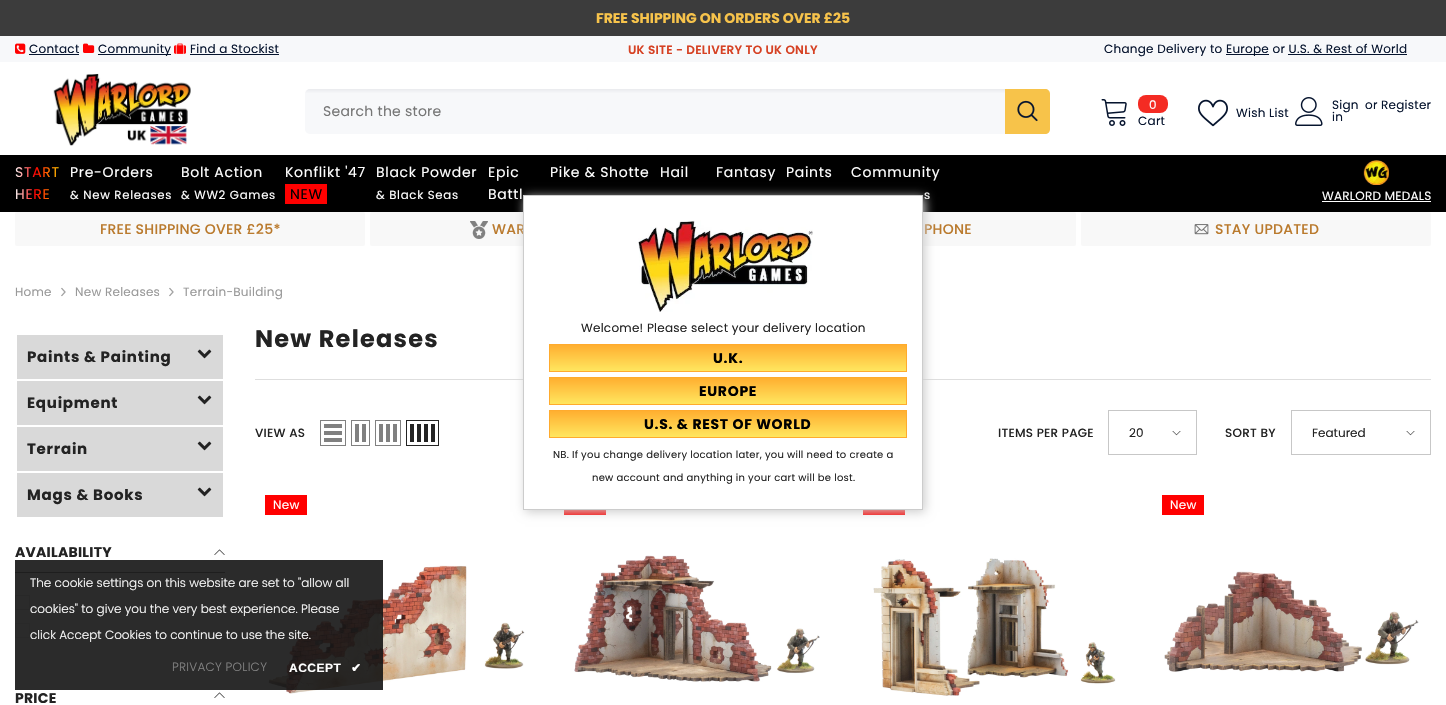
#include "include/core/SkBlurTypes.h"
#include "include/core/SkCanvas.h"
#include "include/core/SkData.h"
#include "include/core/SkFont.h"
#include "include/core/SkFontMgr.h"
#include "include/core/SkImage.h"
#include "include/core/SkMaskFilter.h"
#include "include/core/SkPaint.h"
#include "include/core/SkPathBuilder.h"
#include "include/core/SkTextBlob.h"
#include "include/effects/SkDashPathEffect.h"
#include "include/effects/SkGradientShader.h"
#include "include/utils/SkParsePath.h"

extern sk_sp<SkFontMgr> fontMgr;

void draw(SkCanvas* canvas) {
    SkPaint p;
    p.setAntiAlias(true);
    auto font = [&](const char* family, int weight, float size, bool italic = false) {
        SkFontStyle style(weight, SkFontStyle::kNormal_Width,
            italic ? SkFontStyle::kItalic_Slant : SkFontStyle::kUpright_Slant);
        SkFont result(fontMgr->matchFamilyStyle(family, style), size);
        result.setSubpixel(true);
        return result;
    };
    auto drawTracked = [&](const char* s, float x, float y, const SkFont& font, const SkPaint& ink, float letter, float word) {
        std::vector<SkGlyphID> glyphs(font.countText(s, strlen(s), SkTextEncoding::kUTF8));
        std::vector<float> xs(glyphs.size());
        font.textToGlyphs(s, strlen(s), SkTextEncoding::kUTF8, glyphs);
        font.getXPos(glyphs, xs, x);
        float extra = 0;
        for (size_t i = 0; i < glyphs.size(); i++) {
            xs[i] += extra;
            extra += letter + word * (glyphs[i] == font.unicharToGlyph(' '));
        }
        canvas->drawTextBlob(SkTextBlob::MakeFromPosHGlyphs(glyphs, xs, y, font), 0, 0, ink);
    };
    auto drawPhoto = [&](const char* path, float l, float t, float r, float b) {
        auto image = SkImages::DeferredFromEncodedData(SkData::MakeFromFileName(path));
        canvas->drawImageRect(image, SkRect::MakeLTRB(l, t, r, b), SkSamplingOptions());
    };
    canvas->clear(0xFFFFFFFF);
    p.setColor(0xFF3C3C3C);
    canvas->drawRect(SkRect::MakeLTRB(0, 0, 1446, 36), p);
    auto font1 = font("Poppins", 700, 14);
    p.setColor(0xFFF7C34B);
    canvas->drawString("FREE SHIPPING ON ORDERS OVER £25", 596, 23, font1, p);
    p.setColor(0xFFF7F8FA);
    canvas->drawRect(SkRect::MakeLTRB(0, 36, 1446, 62), p);
    drawPhoto("media/1.png", 15, 43, 26, 54);
    auto font2 = font("Poppins", 400, 12);
    p.setColor(0xFF06142E);
    drawTracked("Contact", 29, 53, font2, p, 0.25f, 0);
    canvas->drawRect(SkRect::MakeLTRB(29, 54, 79, 55), p);
    drawPhoto("media/2.png", 83, 43, 95, 53);
    canvas->drawRect(SkRect::MakeLTRB(98, 54, 171, 55), p);
    drawTracked("Community", 98, 53, font2, p, 0.25f, 0);
    drawPhoto("media/3.png", 174, 43, 186, 54);
    drawTracked("Find a Stockist", 190, 53, font2, p, 0.25f, 0);
    canvas->drawRect(SkRect::MakeLTRB(190, 54, 279, 55), p);
    auto font3 = font("Poppins", 600, 12);
    p.setColor(0xFFD64123);
    drawTracked("UK SITE - DELIVERY TO UK ONLY", 628, 54, font3, p, 0.25f, 0);
    p.setColor(0xFF06142E);
    drawTracked("Change Delivery to", 1104, 53, font2, p, 0.25f, 0);
    canvas->drawRect(SkRect::MakeLTRB(1226, 54, 1269, 55), p);
    drawTracked("Europe or U.S. & Rest of World", 1226, 53, font2, p, 0.25f, 0);
    canvas->drawRect(SkRect::MakeLTRB(1288, 54, 1407, 55), p);
    drawPhoto("media/4.png", 53, 73, 191, 146);
    {
        const SkColor colors[] = {0xFFE9EBEE, 0xFFF7F8FA, 0xFFF7F8FA};
        const float stops[] = {0, 0.1f, 1};
        const SkPoint ends[] = {{678, 89}, {678, 134}};
        p.setShader(SkGradientShader::MakeLinear(ends, colors, stops, 3, SkTileMode::kClamp));
        p.setAlpha(255);
    }
    canvas->drawRoundRect(SkRect::MakeLTRB(305, 89, 1050, 134), 5, 5, p);
    auto font4 = font("Poppins", 400, 14);
    p.setShader(nullptr);
    p.setColor(0xFF767676);
    drawTracked("Search the store", 323, 116, font4, p, 0.25f, 0);
    p.setColor(0xFFF7C34A);
    canvas->drawPath(SkPathBuilder().moveTo(1005, 89).lineTo(1045, 89).cubicTo(1048, 89, 1050, 91, 1050, 94).lineTo(1050, 129).cubicTo(1050, 132, 1048, 134, 1045, 134).lineTo(1005, 134).close().detach(), p);
    drawPhoto("media/5.png", 1017, 100, 1038, 122);
    drawPhoto("media/6.png", 1101, 99, 1127, 126);
    p.setColor(0xFFF42B23);
    canvas->drawRoundRect(SkRect::MakeLTRB(1138, 95, 1168, 113), 8, 8, p);
    p.setColor(0xFFFFFFFF);
    canvas->drawString("0", 1149, 109, font2, p);
    p.setColor(0xFF06142E);
    drawTracked("Cart", 1138, 125, font2, p, 0.25f, 0);
    drawPhoto("media/7.png", 1198, 99, 1228, 127);
    drawTracked("Wish List", 1236, 117, font2, p, 0.25f, 0);
    drawPhoto("media/8.png", 1295, 97, 1323, 126);
    {
        const struct { const char* s; float x, y; } items[] = {
            {"Sign", 1332, 109},
            {"in", 1332, 121},
            {"or", 1365, 109},
            {"Register", 1381, 109},
        };
        for (auto [s, x, y] : items) {
            drawTracked(s, x, y, font2, p, 0.25f, 0);
        }
    }
    p.setColor(0xFF000000);
    canvas->drawRect(SkRect::MakeLTRB(0, 155, 1446, 212), p);
    {
        const SkColor colors[] = {0xFFFFFFFF, 0xFFFF0000, 0xFFFFCC00};
        const float stops[] = {0, 0.45f, 1};
        const SkPoint ends[] = {{15, 183}, {60, 183}};
        p.setShader(SkGradientShader::MakeLinear(ends, colors, stops, 3, SkTileMode::kClamp));
        p.setAlpha(255);
    }
    drawTracked("START", 15, 177, font4, p, 0.7f, 0);
    drawTracked("HERE", 15, 199, font4, p, 0.7f, 0);
    p.setShader(nullptr);
    p.setColor(0xFFFFFFFF);
    drawTracked("Pre-Orders", 70, 177, font4, p, 0.7f, 0);
    auto font5 = font("Poppins", 400, 11.75f);
    drawTracked("& New Releases", 70, 199, font5, p, 0.7f, 0);
    drawTracked("Bolt Action", 181, 177, font4, p, 0.7f, 0);
    drawTracked("& WW2 Games", 181, 199, font5, p, 0.7f, 0);
    drawTracked("Konflikt '47", 285, 177, font4, p, 0.7f, 0);
    p.setColor(0xFFFF0000);
    canvas->drawRect(SkRect::MakeLTRB(285, 184, 327, 204), p);
    p.setColor(0xFF000000);
    drawTracked("NEW", 290, 199, font4, p, 0.7f, 0);
    p.setColor(0xFFFFFFFF);
    drawTracked("Black Powder", 376, 177, font4, p, 0.7f, 0);
    drawTracked("& Black Seas", 376, 199, font5, p, 0.7f, 0);
    {
        const struct { const char* s; float x, y; } items[] = {
            {"Epic", 488, 177},
            {"Battl", 488, 199},
            {"Pike & Shotte", 550, 177},
            {"Hail", 660, 177},
            {"Fantasy", 716, 177},
            {"Paints", 786, 177},
            {"Community", 851, 177},
        };
        for (auto [s, x, y] : items) {
            drawTracked(s, x, y, font4, p, 0.7f, 0);
        }
    }
    drawTracked("s", 924, 199, font5, p, 0.7f, 0);
    drawPhoto("media/9.png", 1363, 160, 1389, 185);
    drawTracked("WARLORD MEDALS", 1322, 200, font2, p, 0.25f, 0);
    canvas->drawRect(SkRect::MakeLTRB(1322, 201, 1431, 202), p);
    p.setColor(0xFFF8F8F8);
    canvas->drawRoundRect(SkRect::MakeLTRB(15, 212, 365, 246), 2, 2, p);
    auto font6 = font("Poppins", 500, 14);
    p.setColor(0xFFBA7A2D);
    drawTracked("FREE SHIPPING OVER £25*", 100, 234, font6, p, 0.25f, 0);
    p.setColor(0xFFF8F8F8);
    canvas->drawRoundRect(SkRect::MakeLTRB(370, 212, 721, 246), 2, 2, p);
    drawPhoto("media/10.png", 470, 221, 488, 239);
    p.setColor(0xFFBA7A2D);
    drawTracked("WAR", 492, 234, font6, p, 0.25f, 0);
    p.setColor(0xFFF8F8F8);
    canvas->drawRoundRect(SkRect::MakeLTRB(726, 212, 1076, 246), 2, 2, p);
    p.setColor(0xFFBA7A2D);
    drawTracked("PHONE", 924, 234, font6, p, 0.25f, 0);
    p.setColor(0xFFF8F8F8);
    canvas->drawRoundRect(SkRect::MakeLTRB(1081, 212, 1431, 246), 2, 2, p);
    drawPhoto("media/11.png", 1194, 224, 1209, 235);
    p.setColor(0xFFBA7A2D);
    drawTracked("STAY UPDATED", 1215, 234, font6, p, 0.25f, 0);
    p.setColor(0xFF999999);
    drawTracked("Home", 15, 296, font2, p, 0.25f, 0);
    drawPhoto("media/12.png", 61, 287, 66, 297);
    drawTracked("New Releases", 75, 296, font2, p, 0.25f, 0);
    drawPhoto("media/12.png", 169, 287, 174, 297);
    drawTracked("Terrain-Building", 183, 296, font2, p, 0.25f, 0);
    p.setColor(0xFFD9D9D9);
    canvas->drawRect(SkRect::MakeLTRB(17, 335, 223, 379), p);
    auto font7 = font("Poppins", 700, 15);
    p.setColor(0xFF232323);
    drawTracked("Paints & Painting", 27, 362, font7, p, 0.75f, 0);
    drawPhoto("media/13.png", 197, 349, 212, 359);
    p.setColor(0xFFD9D9D9);
    canvas->drawRect(SkRect::MakeLTRB(17, 381, 223, 425), p);
    p.setColor(0xFF232323);
    drawTracked("Equipment", 27, 408, font7, p, 0.75f, 0);
    drawPhoto("media/13.png", 197, 395, 212, 405);
    p.setColor(0xFFD9D9D9);
    canvas->drawRect(SkRect::MakeLTRB(17, 427, 223, 471), p);
    p.setColor(0xFF232323);
    drawTracked("Terrain", 27, 454, font7, p, 0.75f, 0);
    drawPhoto("media/13.png", 197, 441, 212, 451);
    p.setColor(0xFFD9D9D9);
    canvas->drawRect(SkRect::MakeLTRB(17, 473, 223, 517), p);
    p.setColor(0xFF232323);
    drawTracked("Mags & Books", 27, 500, font7, p, 0.75f, 0);
    drawPhoto("media/13.png", 197, 487, 212, 497);
    p.setColor(0xFF787878);
    canvas->drawRect(SkRect::MakeLTRB(15, 572, 225, 573), p);
    p.setColor(0xFF232323);
    drawTracked("AVAILABILITY", 15, 557, font1, p, 0.25f, 0);
    drawPhoto("media/14.png", 214, 549, 225, 555);
    p.setStyle(SkPaint::kStroke_Style);
    p.setStrokeWidth(1);
    p.setColor(0xFFDBDBDB);
    canvas->drawRect(SkRect::MakeLTRB(15.5f, 595.5f, 29.5f, 609.5f), p);
    p.setColor(0xFFE9E9E9);
    canvas->drawRect(SkRect::MakeLTRB(15.5f, 623.5f, 29.5f, 637.5f), p);
    p.setStyle(SkPaint::kFill_Style);
    p.setColor(0xFF232323);
    drawTracked("PRICE", 15, 703, font1, p, 0.25f, 0);
    drawPhoto("media/14.png", 214, 692, 225, 698);
    auto font8 = font("Poppins", 700, 24);
    drawTracked("New Releases", 255, 347, font8, p, 1.25f, 0);
    p.setColor(0xFFDEDEDE);
    canvas->drawRect(SkRect::MakeLTRB(255, 379, 1431, 380), p);
    auto font9 = font("Poppins", 500, 12);
    p.setColor(0xFF232323);
    drawTracked("VIEW AS", 255, 437, font9, p, 0.25f, 0);
    p.setStyle(SkPaint::kStroke_Style);
    p.setColor(0xFF808080);
    canvas->drawRect(SkRect::MakeLTRB(320.5f, 420.5f, 345.5f, 445.5f), p);
    p.setStyle(SkPaint::kFill_Style);
    {
        const struct { float l, t, r, b; SkColor color; } items[] = {
            {324, 438, 342, 442, 0xFF808080},
            {324, 431, 342, 435, 0xFF808080},
            {324, 424, 342, 428, 0xFF808080},
        };
        for (auto [l, t, r, b, color] : items) {
            p.setColor(color);
            canvas->drawRect(SkRect::MakeLTRB(l, t, r, b), p);
        }
    }
    p.setStyle(SkPaint::kStroke_Style);
    canvas->drawRect(SkRect::MakeLTRB(351.5f, 420.5f, 369.5f, 445.5f), p);
    p.setStyle(SkPaint::kFill_Style);
    canvas->drawRect(SkRect::MakeLTRB(362, 424, 366, 442), p);
    canvas->drawRect(SkRect::MakeLTRB(355, 424, 359, 442), p);
    p.setStyle(SkPaint::kStroke_Style);
    canvas->drawRect(SkRect::MakeLTRB(375.5f, 420.5f, 400.5f, 445.5f), p);
    p.setStyle(SkPaint::kFill_Style);
    {
        const struct { float l, t, r, b; SkColor color; } items[] = {
            {393, 424, 397, 442, 0xFF808080},
            {386, 424, 390, 442, 0xFF808080},
            {379, 424, 383, 442, 0xFF808080},
        };
        for (auto [l, t, r, b, color] : items) {
            p.setColor(color);
            canvas->drawRect(SkRect::MakeLTRB(l, t, r, b), p);
        }
    }
    p.setStyle(SkPaint::kStroke_Style);
    p.setColor(0xFF232323);
    canvas->drawRect(SkRect::MakeLTRB(406.5f, 420.5f, 438.5f, 445.5f), p);
    p.setStyle(SkPaint::kFill_Style);
    {
        const struct { float l, t, r, b; SkColor color; } items[] = {
            {431, 424, 435, 442, 0xFF232323},
            {424, 424, 428, 442, 0xFF232323},
            {417, 424, 421, 442, 0xFF232323},
            {410, 424, 414, 442, 0xFF232323},
        };
        for (auto [l, t, r, b, color] : items) {
            p.setColor(color);
            canvas->drawRect(SkRect::MakeLTRB(l, t, r, b), p);
        }
    }
    drawTracked("ITEMS PER PAGE", 998, 437, font9, p, 0.25f, 0);
    p.setStyle(SkPaint::kStroke_Style);
    p.setColor(0xFFC7C7C7);
    canvas->drawRect(SkRect::MakeLTRB(1108.5f, 410.5f, 1196.5f, 454.5f), p);
    p.setStyle(SkPaint::kFill_Style);
    p.setColor(0xFF232323);
    canvas->drawString("20", 1129, 437, font2, p);
    drawPhoto("media/15.png", 1172, 431, 1181, 436);
    drawTracked("SORT BY", 1225, 437, font9, p, 0.25f, 0);
    p.setStyle(SkPaint::kStroke_Style);
    p.setColor(0xFFC7C7C7);
    canvas->drawRect(SkRect::MakeLTRB(1291.5f, 410.5f, 1430.5f, 454.5f), p);
    p.setStyle(SkPaint::kFill_Style);
    p.setColor(0xFF232323);
    canvas->drawString("Featured", 1312, 437, font2, p);
    drawPhoto("media/15.png", 1406, 431, 1415, 436);
    p.setColor(0xFFFF0000);
    canvas->drawRect(SkRect::MakeLTRB(265, 495, 307, 515), p);
    p.setColor(0xFFFFFFFF);
    drawTracked("New", 273, 509, font2, p, 0.25f, 0);
    drawPhoto("media/16.png", 268, 565, 525, 694);
    p.setColor(0xFFFF0000);
    canvas->drawRect(SkRect::MakeLTRB(1162, 495, 1204, 515), p);
    p.setColor(0xFFFFFFFF);
    drawTracked("New", 1170, 509, font2, p, 0.25f, 0);
    drawPhoto("media/17.png", 1164, 571, 1419, 672);
    p.setColor(0xFFFF0000);
    canvas->drawRect(SkRect::MakeLTRB(564, 510, 606, 515), p);
    drawPhoto("media/18.png", 574, 555, 820, 682);
    canvas->drawRect(SkRect::MakeLTRB(863, 510, 905, 515), p);
    drawPhoto("media/19.png", 873, 558, 1116, 696);
    p.setColor(0xFFCCCCCC);
    p.setMaskFilter(SkMaskFilter::MakeBlur(kNormal_SkBlurStyle, 5));
    canvas->drawRect(SkRect::MakeLTRB(525, 197, 925, 512), p);
    p.setMaskFilter(nullptr);
    p.setColor(0xFFFFFFFF);
    canvas->drawRect(SkRect::MakeLTRB(523.5f, 195.5f, 922.5f, 509.5f), p);
    p.setStyle(SkPaint::kStroke_Style);
    p.setColor(0xFFCCCCCC);
    canvas->drawRect(SkRect::MakeLTRB(523.5f, 195.5f, 922.5f, 509.5f), p);
    drawPhoto("media/20.png", 638, 220, 813, 312);
    p.setStyle(SkPaint::kFill_Style);
    p.setColor(0xFF232323);
    drawTracked("Welcome! Please select your delivery location", 581, 332, font2, p, 0.25f, 0);
    {
        const SkColor colors[] = {0xFFFFAB2D, 0xFFFFEC64};
        const float stops[] = {0.07f, 0.96f};
        const SkPoint ends[] = {{728, 341}, {728, 375}};
        p.setShader(SkGradientShader::MakeLinear(ends, colors, stops, 2, SkTileMode::kClamp));
        p.setAlpha(255);
    }
    canvas->drawRect(SkRect::MakeLTRB(550, 345, 906, 371), p);
    p.setStyle(SkPaint::kStroke_Style);
    p.setShader(nullptr);
    p.setColor(0xFFFFAB2D);
    canvas->drawRect(SkRect::MakeLTRB(549.5f, 344.5f, 906.5f, 371.5f), p);
    p.setStyle(SkPaint::kFill_Style);
    p.setColor(0xFF000000);
    drawTracked("U.K.", 713, 363, font1, p, 0.7f, 0);
    {
        const SkColor colors[] = {0xFFFFAB2D, 0xFFFFEC64};
        const float stops[] = {0.07f, 0.96f};
        const SkPoint ends[] = {{728, 374}, {728, 408}};
        p.setShader(SkGradientShader::MakeLinear(ends, colors, stops, 2, SkTileMode::kClamp));
        p.setAlpha(255);
    }
    canvas->drawRect(SkRect::MakeLTRB(550, 378, 906, 404), p);
    p.setStyle(SkPaint::kStroke_Style);
    p.setShader(nullptr);
    p.setColor(0xFFFFAB2D);
    canvas->drawRect(SkRect::MakeLTRB(549.5f, 377.5f, 906.5f, 404.5f), p);
    p.setStyle(SkPaint::kFill_Style);
    p.setColor(0xFF000000);
    drawTracked("EUROPE", 699, 396, font1, p, 0.7f, 0);
    {
        const SkColor colors[] = {0xFFFFAB2D, 0xFFFFEC64};
        const float stops[] = {0.07f, 0.96f};
        const SkPoint ends[] = {{728, 407}, {728, 441}};
        p.setShader(SkGradientShader::MakeLinear(ends, colors, stops, 2, SkTileMode::kClamp));
        p.setAlpha(255);
    }
    canvas->drawRect(SkRect::MakeLTRB(550, 411, 906, 437), p);
    p.setStyle(SkPaint::kStroke_Style);
    p.setShader(nullptr);
    p.setColor(0xFFFFAB2D);
    canvas->drawRect(SkRect::MakeLTRB(549.5f, 410.5f, 906.5f, 437.5f), p);
    p.setStyle(SkPaint::kFill_Style);
    p.setColor(0xFF000000);
    drawTracked("U.S. & REST OF WORLD", 644, 429, font1, p, 0.7f, 0);
    auto font10 = font("Poppins", 400, 10);
    p.setColor(0xFF232323);
    drawTracked("NB. If you change delivery location later, you will need to create a", 553, 458, font10, p, 0.25f, 0);
    drawTracked("new account and anything in your cart will be lost.", 592, 481, font10, p, 0.25f, 0);
    p.setColor(0xE6141414);
    canvas->drawRect(SkRect::MakeLTRB(15, 560, 383, 690), p);
    auto font11 = font("Poppins", 300, 12);
    p.setColor(0xFFFFFFFF);
    {
        const struct { const char* s; float x, y; } items[] = {
            {"The cookie settings on this website are set to \"allow all", 30, 587},
            {"cookies\" to give you the very best experience. Please", 30, 613},
            {"click Accept Cookies to continue to use the site.", 30, 639},
        };
        for (auto [s, x, y] : items) {
            canvas->drawString(s, x, y, font11, p);
        }
    }
    p.setColor(0xFF818181);
    drawTracked("PRIVACY POLICY", 172, 671, font11, p, 0.25f, 0);
    auto font12 = font("Liberation Sans", 700, 12);
    p.setColor(0xFFFFFFFF);
    drawTracked("ACCEPT", 289, 672, font12, p, 0.5f, 0);
    auto font13 = font("DejaVu Sans", 700, 12);
    drawTracked("✔", 351, 672, font13, p, 0.5f, 0);
}
